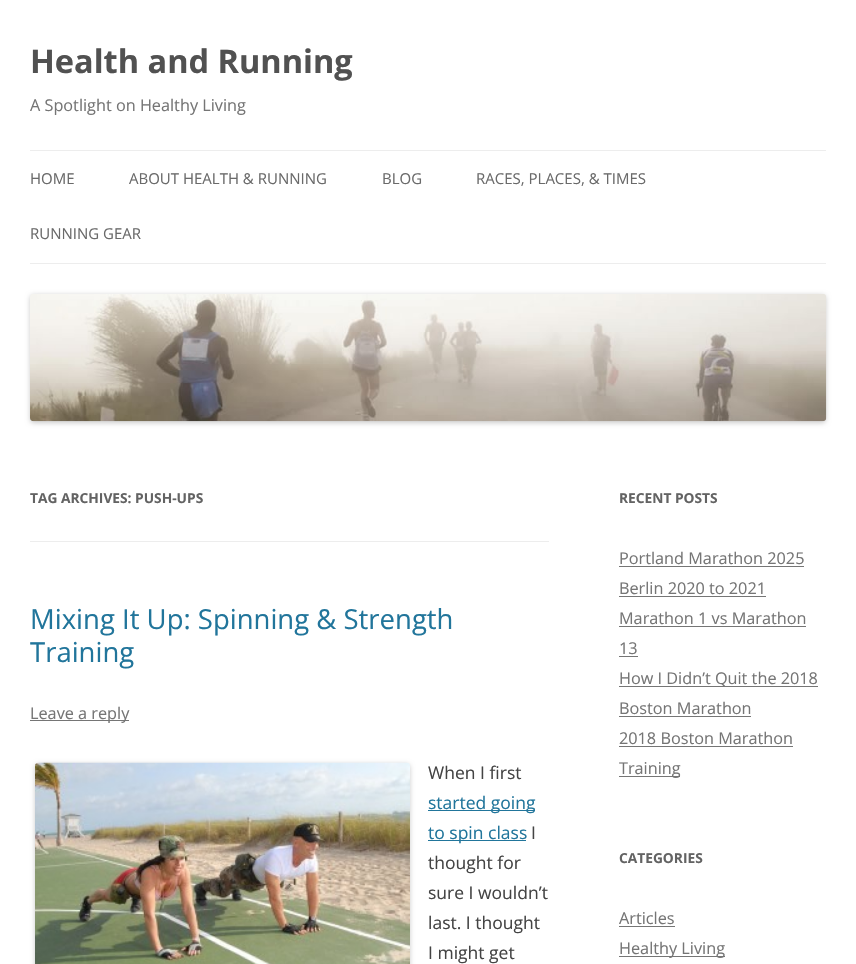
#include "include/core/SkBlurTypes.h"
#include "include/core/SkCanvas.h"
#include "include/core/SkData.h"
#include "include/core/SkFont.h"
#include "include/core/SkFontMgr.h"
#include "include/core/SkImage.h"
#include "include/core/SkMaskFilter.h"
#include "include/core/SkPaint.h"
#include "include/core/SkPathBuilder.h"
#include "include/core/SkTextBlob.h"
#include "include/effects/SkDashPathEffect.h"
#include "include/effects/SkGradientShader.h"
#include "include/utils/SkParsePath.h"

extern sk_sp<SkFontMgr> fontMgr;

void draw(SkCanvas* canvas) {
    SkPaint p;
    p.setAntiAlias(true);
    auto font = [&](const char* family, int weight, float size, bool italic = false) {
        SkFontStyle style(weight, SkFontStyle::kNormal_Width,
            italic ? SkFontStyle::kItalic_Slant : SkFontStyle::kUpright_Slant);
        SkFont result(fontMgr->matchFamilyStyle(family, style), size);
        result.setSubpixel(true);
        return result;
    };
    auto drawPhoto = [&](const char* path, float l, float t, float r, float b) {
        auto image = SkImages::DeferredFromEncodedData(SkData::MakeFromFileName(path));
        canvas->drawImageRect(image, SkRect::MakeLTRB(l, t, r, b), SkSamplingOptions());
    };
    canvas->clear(0xFFFFFFFF);
    auto font1 = font("Open Sans", 700, 32.5f);
    p.setColor(0xFF515151);
    canvas->drawString("Health and Running", 30, 73, font1, p);
    auto font2 = font("Open Sans", 400, 16.25f);
    p.setColor(0xFF757575);
    canvas->drawString("A Spotlight on Healthy Living", 30, 111, font2, p);
    p.setColor(0xFFEDEDED);
    canvas->drawRect(SkRect::MakeLTRB(30, 150, 826, 151), p);
    canvas->drawRect(SkRect::MakeLTRB(30, 263, 826, 264), p);
    auto font3 = font("Open Sans", 400, 15);
    p.setColor(0xFF6A6A6A);
    {
        const struct { const char* s; float x, y; } items[] = {
            {"HOME", 30, 184},
            {"ABOUT HEALTH & RUNNING", 129, 184},
            {"BLOG", 382, 184},
            {"RACES, PLACES, & TIMES", 476, 184},
            {"RUNNING GEAR", 30, 239},
        };
        for (auto [s, x, y] : items) {
            canvas->drawString(s, x, y, font3, p);
        }
    }
    p.setColor(0x33000000);
    p.setMaskFilter(SkMaskFilter::MakeBlur(kNormal_SkBlurStyle, 2.5f));
    canvas->drawRoundRect(SkRect::MakeLTRB(30, 295, 826, 423), 4, 4, p);
    p.setMaskFilter(nullptr);
    drawPhoto("media/1.png", 30, 294, 827, 422);
    p.setColor(0xFFEDEDED);
    canvas->drawRect(SkRect::MakeLTRB(30, 541, 549, 542), p);
    auto font4 = font("Open Sans", 700, 13.75f);
    p.setColor(0xFF636363);
    canvas->drawString("TAG ARCHIVES: PUSH-UPS", 30, 503, font4, p);
    auto font5 = font("Open Sans", 400, 27.5f);
    p.setColor(0xFF21759B);
    canvas->drawString("Mixing It Up: Spinning & Strength", 30, 629, font5, p);
    canvas->drawString("Training", 30, 662, font5, p);
    p.setColor(0xFF757575);
    canvas->drawRect(SkRect::MakeLTRB(30, 720, 129, 721), p);
    canvas->drawString("Leave a reply", 30, 719, font2, p);
    p.setColor(0x33000000);
    p.setMaskFilter(SkMaskFilter::MakeBlur(kNormal_SkBlurStyle, 2.5f));
    canvas->drawRoundRect(SkRect::MakeLTRB(35, 764, 410, 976), 4, 4, p);
    p.setMaskFilter(nullptr);
    drawPhoto("media/2.png", 35, 762, 410, 964);
    auto font6 = font("Open Sans", 400, 17.5f);
    p.setColor(0xFF444444);
    canvas->drawString("When I first", 428, 779, font6, p);
    p.setColor(0xFF21759B);
    canvas->drawRect(SkRect::MakeLTRB(428, 810, 535, 811), p);
    canvas->drawString("started going", 428, 809, font6, p);
    canvas->drawRect(SkRect::MakeLTRB(428, 840, 526, 841), p);
    canvas->drawString("to spin class", 428, 839, font6, p);
    p.setColor(0xFF444444);
    {
        const struct { const char* s; float x, y; } items[] = {
            {"I", 531, 839},
            {"thought for", 428, 869},
            {"sure I wouldn’t", 428, 899},
            {"last. I thought", 428, 929},
            {"I might get", 428, 959},
        };
        for (auto [s, x, y] : items) {
            canvas->drawString(s, x, y, font6, p);
        }
    }
    p.setColor(0xFF636363);
    canvas->drawString("RECENT POSTS", 619, 503, font4, p);
    p.setColor(0xFF757575);
    canvas->drawString("Portland Marathon 2025", 619, 564, font2, p);
    canvas->drawRect(SkRect::MakeLTRB(619, 566, 804, 567), p);
    canvas->drawString("Berlin 2020 to 2021", 619, 594, font2, p);
    canvas->drawRect(SkRect::MakeLTRB(619, 596, 766, 597), p);
    canvas->drawString("Marathon 1 vs Marathon", 619, 624, font2, p);
    canvas->drawRect(SkRect::MakeLTRB(619, 626, 806, 627), p);
    canvas->drawString("13", 619, 654, font2, p);
    canvas->drawRect(SkRect::MakeLTRB(619, 656, 638, 657), p);
    canvas->drawRect(SkRect::MakeLTRB(619, 686, 818, 687), p);
    canvas->drawString("How I Didn’t Quit the 2018", 619, 684, font2, p);
    canvas->drawString("Boston Marathon", 619, 714, font2, p);
    canvas->drawRect(SkRect::MakeLTRB(619, 716, 751, 717), p);
    canvas->drawString("2018 Boston Marathon", 619, 744, font2, p);
    canvas->drawRect(SkRect::MakeLTRB(619, 746, 793, 747), p);
    canvas->drawRect(SkRect::MakeLTRB(619, 776, 680, 777), p);
    canvas->drawString("Training", 619, 774, font2, p);
    p.setColor(0xFF636363);
    canvas->drawString("CATEGORIES", 619, 863, font4, p);
    p.setColor(0xFF757575);
    canvas->drawString("Articles", 619, 924, font2, p);
    canvas->drawRect(SkRect::MakeLTRB(619, 926, 675, 927), p);
    canvas->drawRect(SkRect::MakeLTRB(619, 956, 725, 957), p);
    canvas->drawString("Healthy Living", 619, 954, font2, p);
}
